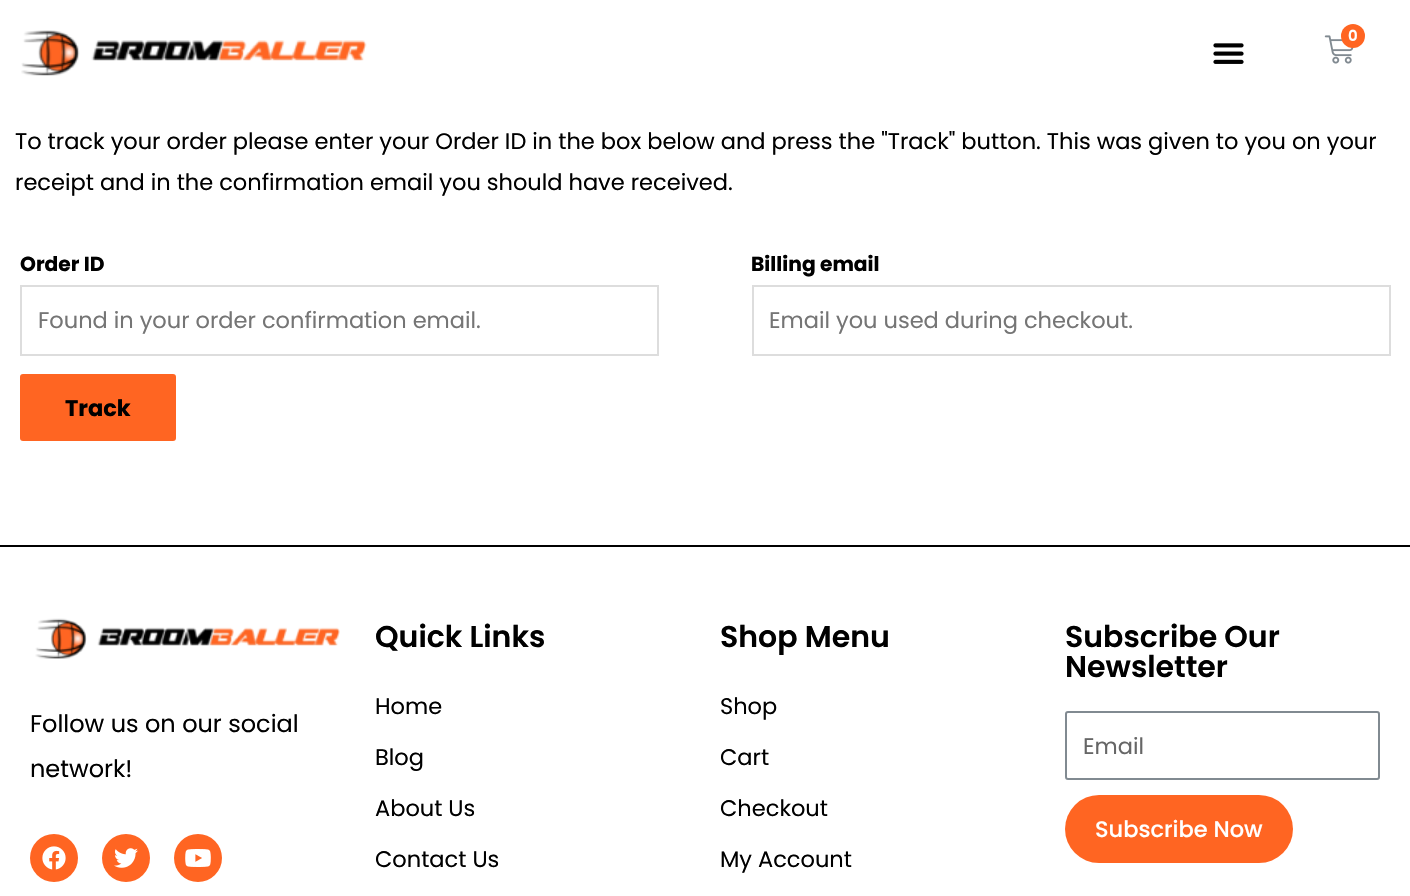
#include "include/core/SkBlurTypes.h"
#include "include/core/SkCanvas.h"
#include "include/core/SkData.h"
#include "include/core/SkFont.h"
#include "include/core/SkFontMgr.h"
#include "include/core/SkImage.h"
#include "include/core/SkMaskFilter.h"
#include "include/core/SkPaint.h"
#include "include/core/SkPathBuilder.h"
#include "include/core/SkTextBlob.h"
#include "include/effects/SkDashPathEffect.h"
#include "include/effects/SkGradientShader.h"
#include "include/utils/SkParsePath.h"

extern sk_sp<SkFontMgr> fontMgr;

void draw(SkCanvas* canvas) {
    SkPaint p;
    p.setAntiAlias(true);
    auto font = [&](const char* family, int weight, float size, bool italic = false) {
        SkFontStyle style(weight, SkFontStyle::kNormal_Width,
            italic ? SkFontStyle::kItalic_Slant : SkFontStyle::kUpright_Slant);
        SkFont result(fontMgr->matchFamilyStyle(family, style), size);
        result.setSubpixel(true);
        return result;
    };
    auto drawPhoto = [&](const char* path, float l, float t, float r, float b) {
        auto image = SkImages::DeferredFromEncodedData(SkData::MakeFromFileName(path));
        canvas->drawImageRect(image, SkRect::MakeLTRB(l, t, r, b), SkSamplingOptions());
    };
    canvas->clear(0xFFFFFFFF);
    drawPhoto("media/1.png", 21, 30, 367, 76);
    drawPhoto("media/2.png", 1213, 43, 1244, 64);
    drawPhoto("media/3.png", 1324, 35, 1354, 64);
    p.setColor(0xFFFF6522);
    canvas->drawCircle(1353, 36, 12, p);
    auto font1 = font("Poppins", 600, 15);
    p.setColor(0xFFFFFFFF);
    canvas->drawString("0", 1348, 41, font1, p);
    auto font2 = font("Poppins", 400, 22.5f);
    p.setColor(0xFF000000);
    canvas->drawString("To track your order please enter your Order ID in the box below and press the \"Track\" button. This was given to you on your", 15, 149, font2, p);
    canvas->drawString("receipt and in the confirmation email you should have received.", 15, 190, font2, p);
    auto font3 = font("Poppins", 700, 20.25f);
    canvas->drawString("Order ID", 20, 271, font3, p);
    p.setStyle(SkPaint::kStroke_Style);
    p.setStrokeWidth(2);
    p.setColor(0xFFDDDDDD);
    canvas->drawRect(SkRect::MakeLTRB(21, 286, 658, 355), p);
    p.setStyle(SkPaint::kFill_Style);
    p.setColor(0xFF757575);
    canvas->drawString("Found in your order confirmation email.", 38, 328, font2, p);
    p.setColor(0xFF000000);
    canvas->drawString("Billing email", 751, 271, font3, p);
    p.setStyle(SkPaint::kStroke_Style);
    p.setColor(0xFFDDDDDD);
    canvas->drawRect(SkRect::MakeLTRB(753, 286, 1390, 355), p);
    p.setStyle(SkPaint::kFill_Style);
    p.setColor(0xFF757575);
    canvas->drawString("Email you used during checkout.", 769, 328, font2, p);
    p.setColor(0xFFFF6522);
    canvas->drawRoundRect(SkRect::MakeLTRB(20, 374, 176, 441), 3, 3, p);
    auto font4 = font("Poppins", 700, 22.5f);
    p.setColor(0xFF000000);
    canvas->drawString("Track", 65, 416, font4, p);
    canvas->drawRect(SkRect::MakeLTRB(0, 545, 1410, 547), p);
    drawPhoto("media/4.png", 35, 618, 340, 659);
    auto font5 = font("Poppins", 400, 24);
    canvas->drawString("Follow us on our social", 30, 732, font5, p);
    canvas->drawString("network!", 30, 777, font5, p);
    p.setColor(0xFFFF6522);
    canvas->drawCircle(54, 858, 24, p);
    drawPhoto("media/5.png", 42, 846, 66, 870);
    canvas->drawCircle(126, 858, 24, p);
    drawPhoto("media/6.png", 114, 848, 138, 868);
    canvas->drawCircle(198, 858, 24, p);
    drawPhoto("media/7.png", 185, 849, 211, 867);
    auto font6 = font("Poppins", 600, 30);
    p.setColor(0xFF000000);
    canvas->drawString("Quick Links", 375, 647, font6, p);
    {
        const struct { const char* s; float x, y; } items[] = {
            {"Home", 375, 714},
            {"Blog", 375, 765},
            {"About Us", 375, 816},
            {"Contact Us", 375, 867},
        };
        for (auto [s, x, y] : items) {
            canvas->drawString(s, x, y, font2, p);
        }
    }
    canvas->drawString("Shop Menu", 720, 647, font6, p);
    {
        const struct { const char* s; float x, y; } items[] = {
            {"Shop", 720, 714},
            {"Cart", 720, 765},
            {"Checkout", 720, 816},
            {"My Account", 720, 867},
        };
        for (auto [s, x, y] : items) {
            canvas->drawString(s, x, y, font2, p);
        }
    }
    canvas->drawString("Subscribe Our", 1065, 647, font6, p);
    canvas->drawString("Newsletter", 1065, 677, font6, p);
    p.setStyle(SkPaint::kStroke_Style);
    p.setColor(0xFF818A91);
    canvas->drawRoundRect(SkRect::MakeLTRB(1066, 712, 1379, 779), 2, 2, p);
    p.setStyle(SkPaint::kFill_Style);
    p.setColor(0xFF666666);
    canvas->drawString("Email", 1083, 754, font2, p);
    p.setColor(0xFFFF6522);
    canvas->drawRoundRect(SkRect::MakeLTRB(1065, 795, 1293, 863), 34, 34, p);
    auto font7 = font("Poppins", 500, 22.5f);
    p.setColor(0xFFFFFFFF);
    canvas->drawString("Subscribe Now", 1095, 837, font7, p);
}
